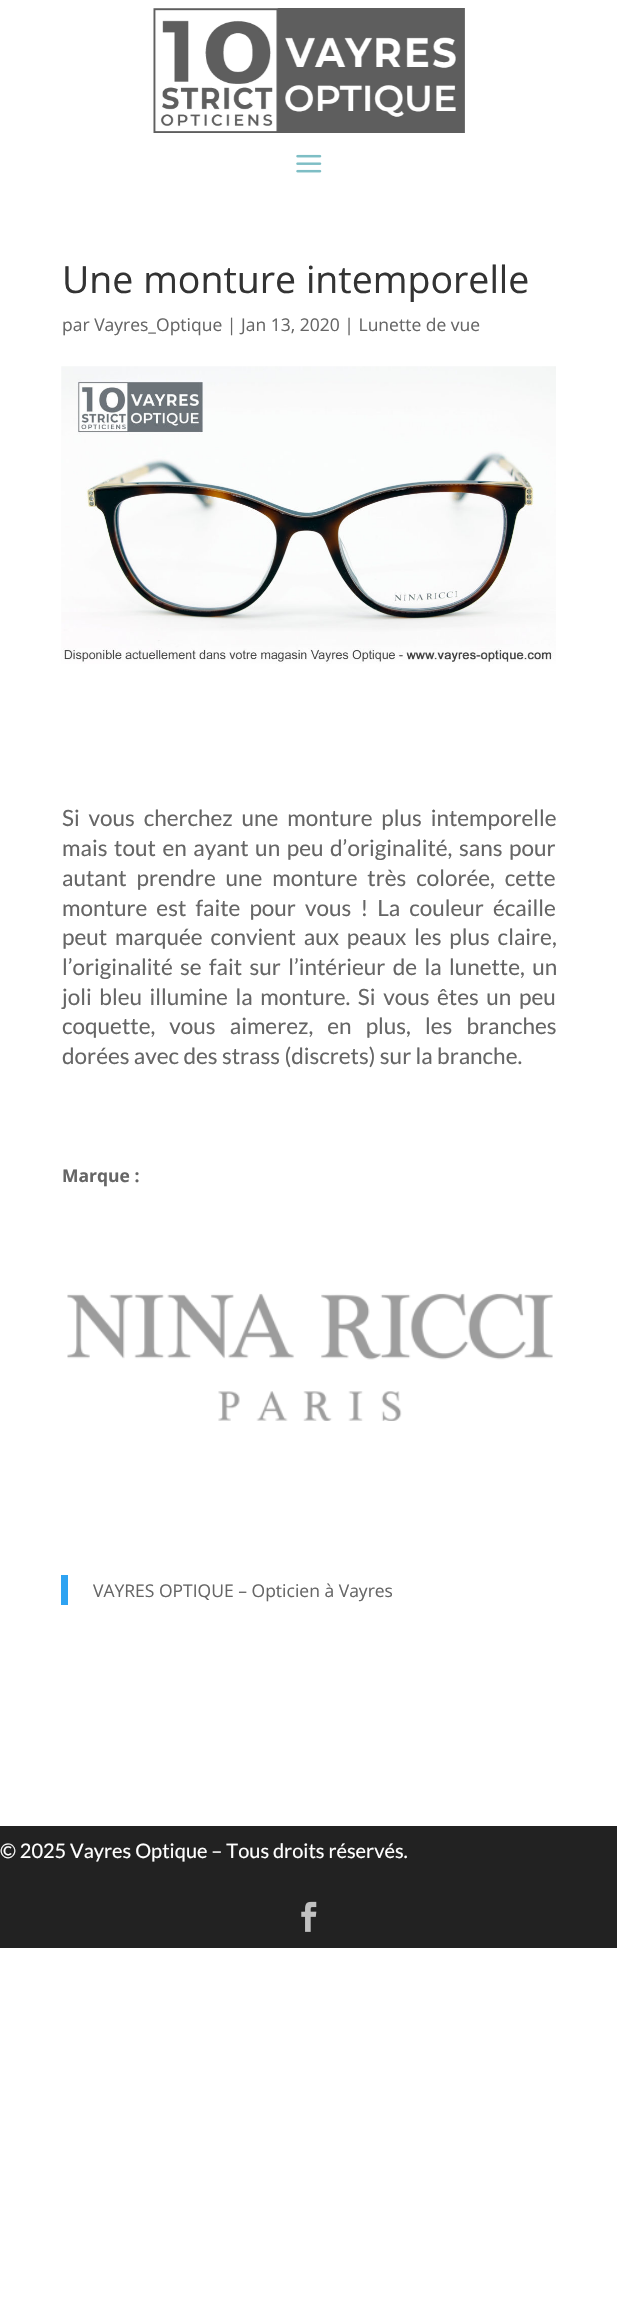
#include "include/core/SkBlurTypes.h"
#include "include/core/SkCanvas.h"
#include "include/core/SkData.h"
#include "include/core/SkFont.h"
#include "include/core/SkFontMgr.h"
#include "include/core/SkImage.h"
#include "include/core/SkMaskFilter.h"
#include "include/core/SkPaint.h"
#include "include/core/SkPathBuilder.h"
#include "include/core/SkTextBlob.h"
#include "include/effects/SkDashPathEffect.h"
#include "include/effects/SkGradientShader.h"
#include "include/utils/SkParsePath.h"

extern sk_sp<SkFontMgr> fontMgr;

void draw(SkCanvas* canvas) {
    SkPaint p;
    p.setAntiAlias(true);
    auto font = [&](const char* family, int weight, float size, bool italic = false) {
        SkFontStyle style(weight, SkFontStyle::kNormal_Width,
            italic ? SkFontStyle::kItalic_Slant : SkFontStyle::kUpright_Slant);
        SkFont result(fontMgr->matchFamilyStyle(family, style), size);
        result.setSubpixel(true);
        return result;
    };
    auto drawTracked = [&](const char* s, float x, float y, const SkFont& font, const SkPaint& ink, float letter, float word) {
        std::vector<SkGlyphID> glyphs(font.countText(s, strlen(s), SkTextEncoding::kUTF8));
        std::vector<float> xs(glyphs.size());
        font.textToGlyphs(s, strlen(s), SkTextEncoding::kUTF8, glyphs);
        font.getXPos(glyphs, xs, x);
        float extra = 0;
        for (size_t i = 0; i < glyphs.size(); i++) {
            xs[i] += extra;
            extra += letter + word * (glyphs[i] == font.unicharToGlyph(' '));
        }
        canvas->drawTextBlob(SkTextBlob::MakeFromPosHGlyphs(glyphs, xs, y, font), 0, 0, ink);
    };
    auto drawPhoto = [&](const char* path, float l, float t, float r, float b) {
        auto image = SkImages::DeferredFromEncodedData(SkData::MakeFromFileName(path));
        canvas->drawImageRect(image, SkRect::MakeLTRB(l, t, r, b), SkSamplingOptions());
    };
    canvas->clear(0xFFFFFFFF);
    drawPhoto("media/1.png", 153, 8, 465, 133);
    drawPhoto("media/2.png", 296, 154, 322, 173);
    auto font1 = font("Open Sans", 400, 37.5f);
    p.setColor(0xFF333333);
    canvas->drawString("Une monture intemporelle", 62, 293, font1, p);
    auto font2 = font("Open Sans", 400, 17.5f);
    p.setColor(0xFF666666);
    canvas->drawString("par Vayres_Optique | Jan 13, 2020 | Lunette de vue", 62, 331, font2, p);
    drawPhoto("media/3.png", 61, 366, 556, 664);
    auto font3 = font("Lato", 400, 22.5f);
    drawTracked("Si vous cherchez une monture plus intemporelle", 62, 826, font3, p, 0, 4.5f);
    drawTracked("mais tout en ayant un peu d’originalité, sans pour", 62, 856, font3, p, 0, 2.25f);
    drawTracked("autant prendre une monture très colorée, cette", 62, 886, font3, p, 0, 5.5f);
    drawTracked("monture est faite pour vous ! La couleur écaille", 62, 916, font3, p, 0, 4.75f);
    drawTracked("peut marquée convient aux peaux les plus claire,", 62, 945, font3, p, 0, 3.5f);
    drawTracked("l’originalité se fait sur l’intérieur de la lunette, un", 62, 975, font3, p, 0, 3);
    drawTracked("joli bleu illumine la monture. Si vous êtes un peu", 62, 1005, font3, p, 0, 3.25f);
    drawTracked("coquette, vous aimerez, en plus, les branches", 62, 1034, font3, p, 0, 9.75f);
    canvas->drawString("dorées avec des strass (discrets) sur la branche.", 62, 1064, font3, p);
    auto font4 = font("Open Sans", 700, 17.5f);
    canvas->drawString("Marque :", 62, 1182, font4, p);
    drawPhoto("media/4.png", 67, 1293, 553, 1421);
    p.setColor(0xFF2EA3F2);
    canvas->drawRect(SkRect::MakeLTRB(61, 1575, 68, 1605), p);
    p.setColor(0xFF666666);
    canvas->drawString("VAYRES OPTIQUE – Opticien à Vayres", 93, 1597, font2, p);
    p.setColor(0xFF222222);
    canvas->drawRect(SkRect::MakeLTRB(0, 1826, 617, 1948), p);
    auto font5 = font("Lato", 400, 20);
    p.setColor(0xFFFFFFFF);
    canvas->drawString("© 2025 Vayres Optique – Tous droits réservés.", 0, 1858, font5, p);
    drawPhoto("media/5.png", 301, 1901, 317, 1932);
}
